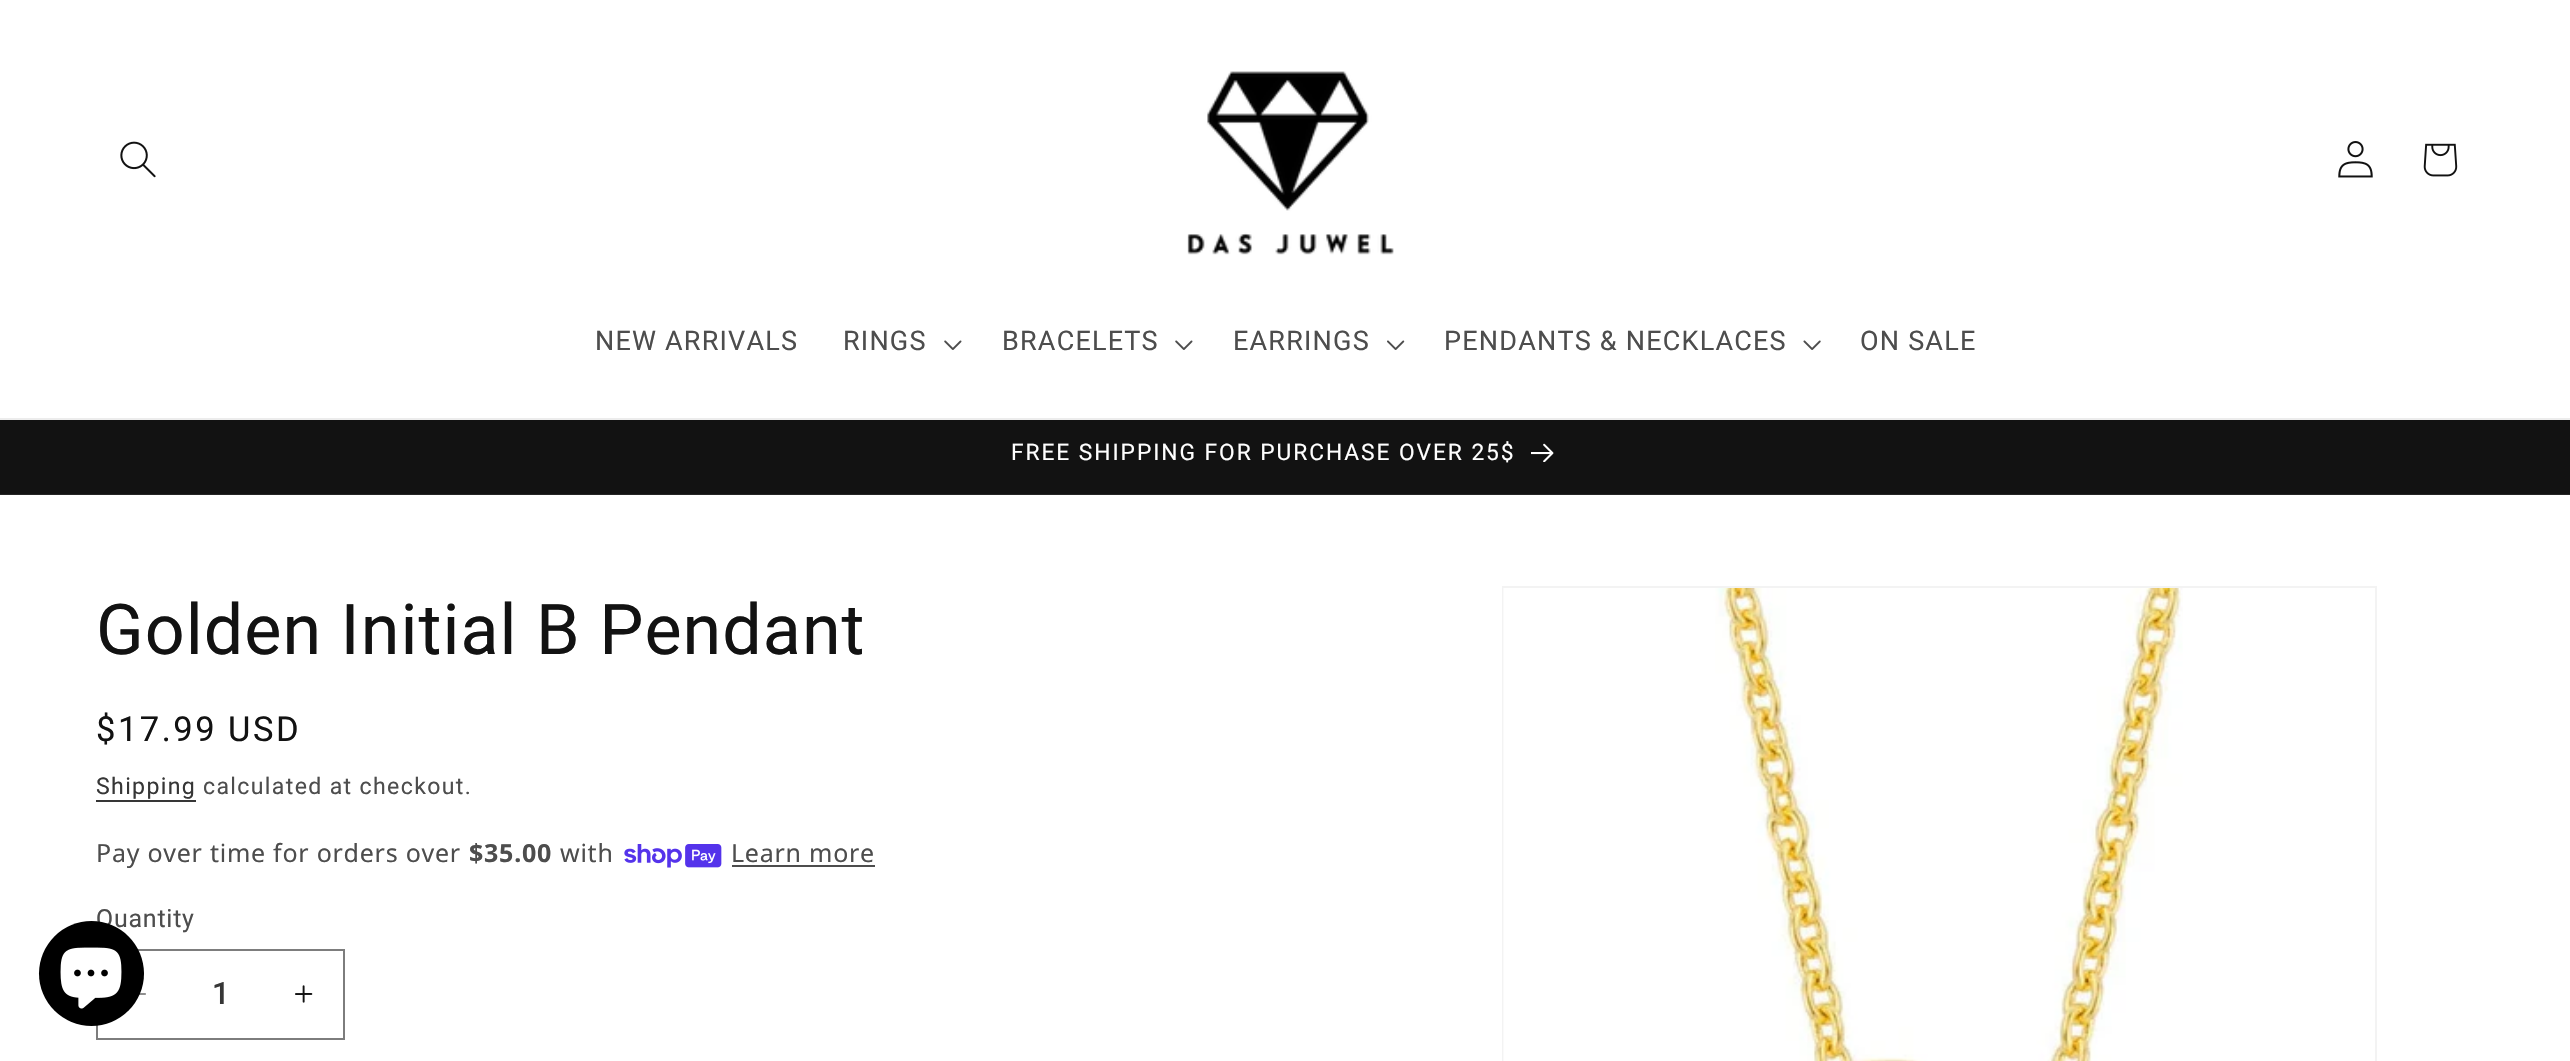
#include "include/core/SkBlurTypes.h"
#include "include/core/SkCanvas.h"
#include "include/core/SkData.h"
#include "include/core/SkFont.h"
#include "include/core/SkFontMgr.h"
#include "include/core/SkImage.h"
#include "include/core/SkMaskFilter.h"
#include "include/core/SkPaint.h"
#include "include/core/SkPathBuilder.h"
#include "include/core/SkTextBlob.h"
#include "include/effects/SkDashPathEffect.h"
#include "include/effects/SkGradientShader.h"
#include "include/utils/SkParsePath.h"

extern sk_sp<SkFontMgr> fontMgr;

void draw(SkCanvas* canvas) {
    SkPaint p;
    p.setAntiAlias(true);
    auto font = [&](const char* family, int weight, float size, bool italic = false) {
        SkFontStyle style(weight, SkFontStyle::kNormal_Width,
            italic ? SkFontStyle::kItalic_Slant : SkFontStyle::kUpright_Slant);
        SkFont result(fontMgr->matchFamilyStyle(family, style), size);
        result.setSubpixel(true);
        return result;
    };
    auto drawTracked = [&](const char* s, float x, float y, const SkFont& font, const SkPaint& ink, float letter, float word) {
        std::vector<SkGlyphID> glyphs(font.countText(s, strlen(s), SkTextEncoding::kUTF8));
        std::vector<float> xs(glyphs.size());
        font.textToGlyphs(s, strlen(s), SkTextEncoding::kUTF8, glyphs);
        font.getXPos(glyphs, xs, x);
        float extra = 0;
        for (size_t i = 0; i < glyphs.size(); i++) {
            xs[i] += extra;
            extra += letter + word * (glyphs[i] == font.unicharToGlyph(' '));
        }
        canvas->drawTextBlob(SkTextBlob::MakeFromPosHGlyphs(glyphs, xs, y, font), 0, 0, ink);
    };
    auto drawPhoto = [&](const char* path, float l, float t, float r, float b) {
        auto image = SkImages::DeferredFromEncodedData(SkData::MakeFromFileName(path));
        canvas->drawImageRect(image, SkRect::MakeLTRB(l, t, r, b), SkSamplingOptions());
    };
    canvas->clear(0xFFFFFFFF);
    p.setColor(0xFFECECEC);
    canvas->drawRect(SkRect::MakeLTRB(0, 418, 2570, 420), p);
    drawPhoto("media/1.png", 120, 141, 156, 178);
    drawPhoto("media/2.png", 1187, 71, 1394, 255);
    drawPhoto("media/3.png", 2338, 141, 2373, 178);
    drawPhoto("media/4.png", 2423, 143, 2458, 177);
    auto font1 = font("Roboto", 400, 27);
    p.setColor(0xFF4D4D4D);
    drawTracked("NEW ARRIVALS", 595, 350, font1, p, 1.2f, 0);
    drawTracked("RINGS", 843, 350, font1, p, 1.2f, 0);
    drawPhoto("media/5.png", 944, 340, 962, 350);
    drawTracked("BRACELETS", 1002, 350, font1, p, 1.2f, 0);
    drawPhoto("media/5.png", 1175, 340, 1193, 350);
    drawTracked("EARRINGS", 1233, 350, font1, p, 1.2f, 0);
    drawPhoto("media/6.png", 1387, 340, 1405, 350);
    drawTracked("PENDANTS & NECKLACES", 1444, 350, font1, p, 1.2f, 0);
    drawPhoto("media/7.png", 1803, 340, 1821, 350);
    drawTracked("ON SALE", 1860, 350, font1, p, 1.2f, 0);
    p.setColor(0xFF121212);
    canvas->drawRect(SkRect::MakeLTRB(0, 420, 2570, 494), p);
    p.setColor(0xFF252525);
    canvas->drawRect(SkRect::MakeLTRB(0, 494, 2570, 495), p);
    auto font2 = font("Roboto", 400, 22.75f);
    p.setColor(0xFFFFFFFF);
    drawTracked("FREE SHIPPING FOR PURCHASE OVER 25$", 1011, 460, font2, p, 1.95f, 0);
    drawPhoto("media/8.png", 1531, 443, 1554, 462);
    auto font3 = font("Roboto", 400, 25);
    p.setColor(0xFF4D4D4D);
    drawTracked("Quantity", 96, 927, font3, p, 0.75f, 0);
    drawPhoto("media/11.png", 139, 993, 146, 995);
    drawPhoto("media/12.png", 295, 985, 313, 1003);
    p.setStyle(SkPaint::kStroke_Style);
    p.setStrokeWidth(2);
    p.setColor(0xFF7D7D7D);
    canvas->drawRect(SkRect::MakeLTRB(97, 950, 344, 1039), p);
    p.setStyle(SkPaint::kFill_Style);
    p.setColor(0xFF000000);
    canvas->drawCircle(91.5f, 973.5f, 52.5f, p);
    drawPhoto("media/9.png", 60, 947, 122, 1009);
    auto font4 = font("Roboto", 400, 70);
    p.setColor(0xFF121212);
    drawTracked("Golden Initial B Pendant", 96, 654, font4, p, 1.05f, 0);
    auto font5 = font("Roboto", 400, 34.5f);
    drawTracked("$17.99 USD", 96, 741, font5, p, 2.5f, 0);
    auto font6 = font("Roboto", 400, 23.1f);
    p.setColor(0xFF363636);
    drawTracked("Shipping", 96, 794, font6, p, 1.35f, 0);
    canvas->drawRect(SkRect::MakeLTRB(96, 800, 196, 802), p);
    p.setColor(0xFF4D4D4D);
    drawTracked("calculated at checkout.", 203, 794, font6, p, 1.35f, 0);
    auto font7 = font("Noto Sans", 400, 25);
    drawTracked("Pay over time for orders over", 96, 862, font7, p, 0.75f, 0);
    auto font8 = font("Noto Sans", 700, 25);
    drawTracked("$35.00", 469, 862, font8, p, 0.75f, 0);
    drawTracked("with", 560, 862, font7, p, 0.75f, 0);
    drawPhoto("media/10.png", 624, 844, 722, 868);
    drawTracked("Learn more", 731, 862, font7, p, 0.75f, 0);
    canvas->drawRect(SkRect::MakeLTRB(732, 865, 875, 867), p);
    auto font9 = font("Roboto", 500, 31);
    p.setColor(0xFF363636);
    canvas->drawString("1", 212, 1004, font9, p);
    p.setStyle(SkPaint::kStroke_Style);
    p.setColor(0xFFF3F3F3);
    canvas->drawRect(SkRect::MakeLTRB(1503, 587, 2376, 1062), p);
    drawPhoto("media/13.png", 1503, 588, 2183, 1061);
}
